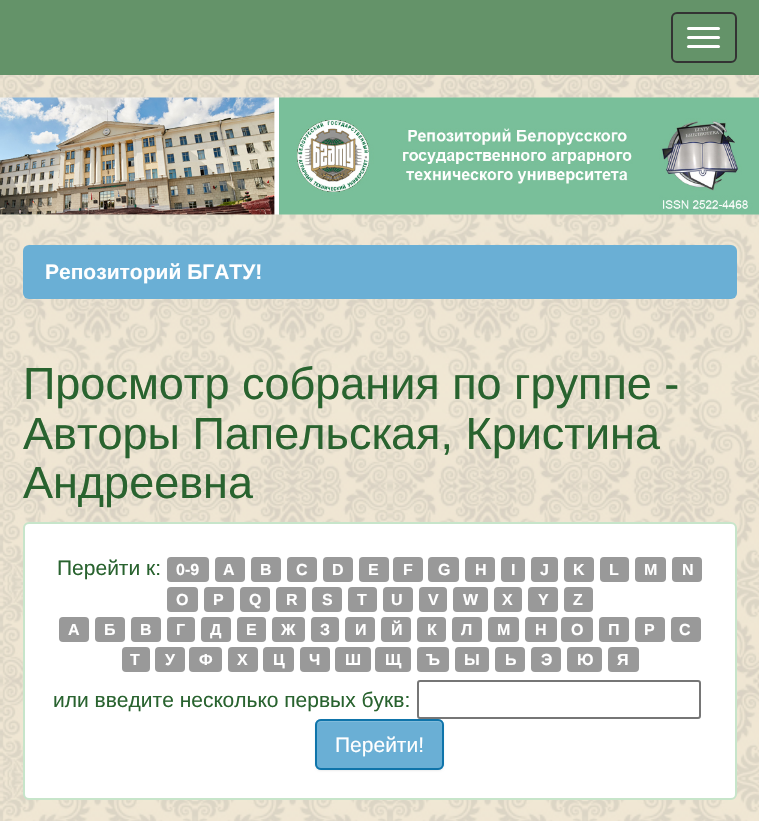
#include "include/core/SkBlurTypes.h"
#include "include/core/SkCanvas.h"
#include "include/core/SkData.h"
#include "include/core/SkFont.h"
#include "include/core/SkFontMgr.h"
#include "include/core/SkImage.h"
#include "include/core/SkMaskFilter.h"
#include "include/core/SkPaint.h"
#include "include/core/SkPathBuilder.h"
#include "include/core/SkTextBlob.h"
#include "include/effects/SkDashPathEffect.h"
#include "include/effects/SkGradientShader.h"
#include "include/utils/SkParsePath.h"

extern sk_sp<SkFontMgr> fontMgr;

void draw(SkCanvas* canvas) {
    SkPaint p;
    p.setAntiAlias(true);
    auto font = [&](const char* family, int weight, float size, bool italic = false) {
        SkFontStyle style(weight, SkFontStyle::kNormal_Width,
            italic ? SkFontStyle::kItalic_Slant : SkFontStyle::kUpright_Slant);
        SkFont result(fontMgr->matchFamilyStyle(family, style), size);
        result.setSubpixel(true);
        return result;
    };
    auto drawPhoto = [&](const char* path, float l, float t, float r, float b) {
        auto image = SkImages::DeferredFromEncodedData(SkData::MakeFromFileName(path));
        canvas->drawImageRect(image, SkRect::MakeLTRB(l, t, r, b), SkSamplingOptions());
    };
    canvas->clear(0xFFFFFFFF);
    drawPhoto("media/1.png", 0, 75, 759, 821);
    p.setColor(0xFF649369);
    canvas->drawRect(SkRect::MakeLTRB(0, 0, 759, 75), p);
    p.setStyle(SkPaint::kStroke_Style);
    p.setStrokeWidth(2);
    p.setColor(0xFF333333);
    canvas->drawRoundRect(SkRect::MakeLTRB(672, 13, 736, 62), 5, 5, p);
    p.setStyle(SkPaint::kFill_Style);
    p.setColor(0xFFFFFFFF);
    canvas->drawRoundRect(SkRect::MakeLTRB(687, 27, 720, 30), 1.5f, 1.5f, p);
    canvas->drawRoundRect(SkRect::MakeLTRB(687, 36, 720, 39), 1.5f, 1.5f, p);
    canvas->drawRoundRect(SkRect::MakeLTRB(687, 45, 720, 48), 1.5f, 1.5f, p);
    drawPhoto("media/2.png", 0, 97, 759, 215);
    p.setColor(0xFF6AAFD5);
    canvas->drawRoundRect(SkRect::MakeLTRB(23, 245, 737, 299), 6, 6, p);
    auto font1 = font("Liberation Sans", 700, 21);
    p.setColor(0xFFFFFFFF);
    canvas->drawString("Репозиторий БГАТУ!", 45, 279, font1, p);
    auto font2 = font("Liberation Sans", 400, 45);
    p.setColor(0xFF29632F);
    {
        const struct { const char* s; float x, y; } items[] = {
            {"Просмотр собрания по группе -", 23, 399},
            {"Авторы Папельская, Кристина", 23, 449},
            {"Андреевна", 23, 498},
        };
        for (auto [s, x, y] : items) {
            canvas->drawString(s, x, y, font2, p);
        }
    }
    p.setColor(0xFFFFFFFF);
    canvas->drawRoundRect(SkRect::MakeLTRB(24, 523, 736, 799), 5, 5, p);
    p.setStyle(SkPaint::kStroke_Style);
    p.setColor(0xFFC7E5CA);
    canvas->drawRoundRect(SkRect::MakeLTRB(24, 523, 736, 799), 5, 5, p);
    auto font3 = font("Liberation Sans", 400, 21);
    p.setStyle(SkPaint::kFill_Style);
    p.setColor(0xFF29632F);
    canvas->drawString("Перейти к:", 57, 575, font3, p);
    p.setColor(0xFF999999);
    canvas->drawRoundRect(SkRect::MakeLTRB(167, 557, 209, 582), 4, 4, p);
    auto font4 = font("Liberation Sans", 700, 16);
    p.setColor(0xFFFFFFFF);
    canvas->drawString("0-9", 176, 575, font4, p);
    p.setColor(0xFF999999);
    canvas->drawRoundRect(SkRect::MakeLTRB(215, 557, 245, 582), 4, 4, p);
    p.setColor(0xFFFFFFFF);
    canvas->drawString("A", 223, 575, font4, p);
    p.setColor(0xFF999999);
    canvas->drawRoundRect(SkRect::MakeLTRB(251, 557, 281, 582), 4, 4, p);
    p.setColor(0xFFFFFFFF);
    canvas->drawString("B", 260, 575, font4, p);
    p.setColor(0xFF999999);
    canvas->drawRoundRect(SkRect::MakeLTRB(287, 557, 317, 582), 4, 4, p);
    p.setColor(0xFFFFFFFF);
    canvas->drawString("C", 296, 575, font4, p);
    p.setColor(0xFF999999);
    canvas->drawRoundRect(SkRect::MakeLTRB(323, 557, 353, 582), 4, 4, p);
    p.setColor(0xFFFFFFFF);
    canvas->drawString("D", 332, 575, font4, p);
    p.setColor(0xFF999999);
    canvas->drawRoundRect(SkRect::MakeLTRB(359, 557, 389, 582), 4, 4, p);
    p.setColor(0xFFFFFFFF);
    canvas->drawString("E", 368, 575, font4, p);
    p.setColor(0xFF999999);
    canvas->drawRoundRect(SkRect::MakeLTRB(393, 557, 423, 582), 4, 4, p);
    p.setColor(0xFFFFFFFF);
    canvas->drawString("F", 403, 575, font4, p);
    p.setColor(0xFF999999);
    canvas->drawRoundRect(SkRect::MakeLTRB(428, 557, 459, 582), 4, 4, p);
    p.setColor(0xFFFFFFFF);
    canvas->drawString("G", 438, 575, font4, p);
    p.setColor(0xFF999999);
    canvas->drawRoundRect(SkRect::MakeLTRB(465, 557, 495, 582), 4, 4, p);
    p.setColor(0xFFFFFFFF);
    canvas->drawString("H", 475, 575, font4, p);
    p.setColor(0xFF999999);
    canvas->drawRoundRect(SkRect::MakeLTRB(501, 557, 525, 582), 4, 4, p);
    p.setColor(0xFFFFFFFF);
    canvas->drawString("I", 511, 575, font4, p);
    p.setColor(0xFF999999);
    canvas->drawRoundRect(SkRect::MakeLTRB(531, 557, 558, 582), 4, 4, p);
    p.setColor(0xFFFFFFFF);
    canvas->drawString("J", 540, 575, font4, p);
    p.setColor(0xFF999999);
    canvas->drawRoundRect(SkRect::MakeLTRB(564, 557, 594, 582), 4, 4, p);
    p.setColor(0xFFFFFFFF);
    canvas->drawString("K", 573, 575, font4, p);
    p.setColor(0xFF999999);
    canvas->drawRoundRect(SkRect::MakeLTRB(600, 557, 629, 582), 4, 4, p);
    p.setColor(0xFFFFFFFF);
    canvas->drawString("L", 609, 575, font4, p);
    p.setColor(0xFF999999);
    canvas->drawRoundRect(SkRect::MakeLTRB(635, 557, 666, 582), 4, 4, p);
    p.setColor(0xFFFFFFFF);
    canvas->drawString("M", 644, 575, font4, p);
    p.setColor(0xFF999999);
    canvas->drawRoundRect(SkRect::MakeLTRB(672, 557, 702, 582), 4, 4, p);
    p.setColor(0xFFFFFFFF);
    canvas->drawString("N", 682, 575, font4, p);
    p.setColor(0xFF999999);
    canvas->drawRoundRect(SkRect::MakeLTRB(167, 587, 198, 612), 4, 4, p);
    p.setColor(0xFFFFFFFF);
    canvas->drawString("O", 176, 605, font4, p);
    p.setColor(0xFF999999);
    canvas->drawRoundRect(SkRect::MakeLTRB(204, 587, 234, 612), 4, 4, p);
    p.setColor(0xFFFFFFFF);
    canvas->drawString("P", 213, 605, font4, p);
    p.setColor(0xFF999999);
    canvas->drawRoundRect(SkRect::MakeLTRB(240, 587, 270, 612), 4, 4, p);
    p.setColor(0xFFFFFFFF);
    canvas->drawString("Q", 249, 605, font4, p);
    p.setColor(0xFF999999);
    canvas->drawRoundRect(SkRect::MakeLTRB(276, 587, 306, 612), 4, 4, p);
    p.setColor(0xFFFFFFFF);
    canvas->drawString("R", 286, 605, font4, p);
    p.setColor(0xFF999999);
    canvas->drawRoundRect(SkRect::MakeLTRB(312, 587, 342, 612), 4, 4, p);
    p.setColor(0xFFFFFFFF);
    canvas->drawString("S", 322, 605, font4, p);
    p.setColor(0xFF999999);
    canvas->drawRoundRect(SkRect::MakeLTRB(348, 587, 377, 612), 4, 4, p);
    p.setColor(0xFFFFFFFF);
    canvas->drawString("T", 357, 605, font4, p);
    p.setColor(0xFF999999);
    canvas->drawRoundRect(SkRect::MakeLTRB(383, 587, 413, 612), 4, 4, p);
    p.setColor(0xFFFFFFFF);
    canvas->drawString("U", 391, 605, font4, p);
    p.setColor(0xFF999999);
    canvas->drawRoundRect(SkRect::MakeLTRB(419, 587, 447, 612), 4, 4, p);
    p.setColor(0xFFFFFFFF);
    canvas->drawString("V", 428, 605, font4, p);
    p.setColor(0xFF999999);
    canvas->drawRoundRect(SkRect::MakeLTRB(453, 587, 488, 612), 4, 4, p);
    p.setColor(0xFFFFFFFF);
    canvas->drawString("W", 463, 605, font4, p);
    p.setColor(0xFF999999);
    canvas->drawRoundRect(SkRect::MakeLTRB(494, 587, 522, 612), 4, 4, p);
    p.setColor(0xFFFFFFFF);
    canvas->drawString("X", 502, 605, font4, p);
    p.setColor(0xFF999999);
    canvas->drawRoundRect(SkRect::MakeLTRB(528, 587, 558, 612), 4, 4, p);
    p.setColor(0xFFFFFFFF);
    canvas->drawString("Y", 538, 605, font4, p);
    p.setColor(0xFF999999);
    canvas->drawRoundRect(SkRect::MakeLTRB(564, 587, 593, 612), 4, 4, p);
    p.setColor(0xFFFFFFFF);
    canvas->drawString("Z", 573, 605, font4, p);
    p.setColor(0xFF999999);
    canvas->drawRoundRect(SkRect::MakeLTRB(59, 617, 89, 642), 4, 4, p);
    p.setColor(0xFFFFFFFF);
    canvas->drawString("А", 68, 635, font4, p);
    p.setColor(0xFF999999);
    canvas->drawRoundRect(SkRect::MakeLTRB(95, 617, 125, 642), 4, 4, p);
    p.setColor(0xFFFFFFFF);
    canvas->drawString("Б", 104, 635, font4, p);
    p.setColor(0xFF999999);
    canvas->drawRoundRect(SkRect::MakeLTRB(131, 617, 161, 642), 4, 4, p);
    p.setColor(0xFFFFFFFF);
    canvas->drawString("В", 140, 635, font4, p);
    p.setColor(0xFF999999);
    canvas->drawRoundRect(SkRect::MakeLTRB(167, 617, 195, 642), 4, 4, p);
    p.setColor(0xFFFFFFFF);
    canvas->drawString("Г", 176, 635, font4, p);
    p.setColor(0xFF999999);
    canvas->drawRoundRect(SkRect::MakeLTRB(201, 617, 231, 642), 4, 4, p);
    p.setColor(0xFFFFFFFF);
    canvas->drawString("Д", 210, 635, font4, p);
    p.setColor(0xFF999999);
    canvas->drawRoundRect(SkRect::MakeLTRB(237, 617, 266, 642), 4, 4, p);
    p.setColor(0xFFFFFFFF);
    canvas->drawString("Е", 246, 635, font4, p);
    p.setColor(0xFF999999);
    canvas->drawRoundRect(SkRect::MakeLTRB(272, 617, 305, 642), 4, 4, p);
    p.setColor(0xFFFFFFFF);
    canvas->drawString("Ж", 281, 635, font4, p);
    p.setColor(0xFF999999);
    canvas->drawRoundRect(SkRect::MakeLTRB(311, 617, 339, 642), 4, 4, p);
    p.setColor(0xFFFFFFFF);
    canvas->drawString("З", 320, 635, font4, p);
    p.setColor(0xFF999999);
    canvas->drawRoundRect(SkRect::MakeLTRB(345, 617, 375, 642), 4, 4, p);
    p.setColor(0xFFFFFFFF);
    canvas->drawString("И", 355, 635, font4, p);
    p.setColor(0xFF999999);
    canvas->drawRoundRect(SkRect::MakeLTRB(381, 617, 411, 642), 4, 4, p);
    p.setColor(0xFFFFFFFF);
    canvas->drawString("Й", 391, 635, font4, p);
    p.setColor(0xFF999999);
    canvas->drawRoundRect(SkRect::MakeLTRB(417, 617, 446, 642), 4, 4, p);
    p.setColor(0xFFFFFFFF);
    canvas->drawString("К", 427, 635, font4, p);
    p.setColor(0xFF999999);
    canvas->drawRoundRect(SkRect::MakeLTRB(452, 617, 482, 642), 4, 4, p);
    p.setColor(0xFFFFFFFF);
    canvas->drawString("Л", 461, 635, font4, p);
    p.setColor(0xFF999999);
    canvas->drawRoundRect(SkRect::MakeLTRB(488, 617, 519, 642), 4, 4, p);
    p.setColor(0xFFFFFFFF);
    canvas->drawString("М", 497, 635, font4, p);
    p.setColor(0xFF999999);
    canvas->drawRoundRect(SkRect::MakeLTRB(525, 617, 557, 642), 4, 4, p);
    p.setColor(0xFFFFFFFF);
    canvas->drawString("Н", 535, 635, font4, p);
    p.setColor(0xFF999999);
    canvas->drawRoundRect(SkRect::MakeLTRB(561, 617, 593, 642), 4, 4, p);
    p.setColor(0xFFFFFFFF);
    canvas->drawString("О", 571, 635, font4, p);
    p.setColor(0xFF999999);
    canvas->drawRoundRect(SkRect::MakeLTRB(599, 617, 629, 642), 4, 4, p);
    p.setColor(0xFFFFFFFF);
    canvas->drawString("П", 608, 635, font4, p);
    p.setColor(0xFF999999);
    canvas->drawRoundRect(SkRect::MakeLTRB(635, 617, 665, 642), 4, 4, p);
    p.setColor(0xFFFFFFFF);
    canvas->drawString("Р", 644, 635, font4, p);
    p.setColor(0xFF999999);
    canvas->drawRoundRect(SkRect::MakeLTRB(671, 617, 701, 642), 4, 4, p);
    p.setColor(0xFFFFFFFF);
    canvas->drawString("С", 679, 635, font4, p);
    p.setColor(0xFF999999);
    canvas->drawRoundRect(SkRect::MakeLTRB(122, 647, 150, 672), 4, 4, p);
    p.setColor(0xFFFFFFFF);
    canvas->drawString("Т", 130, 665, font4, p);
    p.setColor(0xFF999999);
    canvas->drawRoundRect(SkRect::MakeLTRB(155, 647, 185, 672), 4, 4, p);
    p.setColor(0xFFFFFFFF);
    canvas->drawString("У", 165, 665, font4, p);
    p.setColor(0xFF999999);
    canvas->drawRoundRect(SkRect::MakeLTRB(189, 647, 222, 672), 4, 4, p);
    p.setColor(0xFFFFFFFF);
    canvas->drawString("Ф", 199, 665, font4, p);
    p.setColor(0xFF999999);
    canvas->drawRoundRect(SkRect::MakeLTRB(228, 647, 258, 672), 4, 4, p);
    p.setColor(0xFFFFFFFF);
    canvas->drawString("Х", 237, 665, font4, p);
    p.setColor(0xFF999999);
    canvas->drawRoundRect(SkRect::MakeLTRB(263, 647, 294, 672), 4, 4, p);
    p.setColor(0xFFFFFFFF);
    canvas->drawString("Ц", 273, 665, font4, p);
    p.setColor(0xFF999999);
    canvas->drawRoundRect(SkRect::MakeLTRB(300, 647, 330, 672), 4, 4, p);
    p.setColor(0xFFFFFFFF);
    canvas->drawString("Ч", 309, 665, font4, p);
    p.setColor(0xFF999999);
    canvas->drawRoundRect(SkRect::MakeLTRB(335, 647, 371, 672), 4, 4, p);
    p.setColor(0xFFFFFFFF);
    canvas->drawString("Ш", 345, 665, font4, p);
    p.setColor(0xFF999999);
    canvas->drawRoundRect(SkRect::MakeLTRB(375, 647, 411, 672), 4, 4, p);
    p.setColor(0xFFFFFFFF);
    canvas->drawString("Щ", 385, 665, font4, p);
    p.setColor(0xFF999999);
    canvas->drawRoundRect(SkRect::MakeLTRB(417, 647, 449, 672), 4, 4, p);
    p.setColor(0xFFFFFFFF);
    canvas->drawString("Ъ", 426, 665, font4, p);
    p.setColor(0xFF999999);
    canvas->drawRoundRect(SkRect::MakeLTRB(455, 647, 489, 672), 4, 4, p);
    p.setColor(0xFFFFFFFF);
    canvas->drawString("Ы", 464, 665, font4, p);
    p.setColor(0xFF999999);
    canvas->drawRoundRect(SkRect::MakeLTRB(495, 647, 525, 672), 4, 4, p);
    p.setColor(0xFFFFFFFF);
    canvas->drawString("Ь", 505, 665, font4, p);
    p.setColor(0xFF999999);
    canvas->drawRoundRect(SkRect::MakeLTRB(531, 647, 561, 672), 4, 4, p);
    p.setColor(0xFFFFFFFF);
    canvas->drawString("Э", 541, 665, font4, p);
    p.setColor(0xFF999999);
    canvas->drawRoundRect(SkRect::MakeLTRB(567, 647, 602, 672), 4, 4, p);
    p.setColor(0xFFFFFFFF);
    canvas->drawString("Ю", 577, 665, font4, p);
    p.setColor(0xFF999999);
    canvas->drawRoundRect(SkRect::MakeLTRB(608, 647, 639, 672), 4, 4, p);
    p.setColor(0xFFFFFFFF);
    canvas->drawString("Я", 617, 665, font4, p);
    p.setColor(0xFF29632F);
    canvas->drawString("или введите несколько первых букв:", 53, 707, font3, p);
    p.setStyle(SkPaint::kStroke_Style);
    p.setColor(0xFF767676);
    canvas->drawRoundRect(SkRect::MakeLTRB(418, 681, 700, 718), 2, 2, p);
    p.setStyle(SkPaint::kFill_Style);
    p.setColor(0x12000000);
    p.setMaskFilter(SkMaskFilter::MakeBlur(kNormal_SkBlurStyle, 1));
    canvas->drawRoundRect(SkRect::MakeLTRB(315, 720, 444, 771), 6, 6, p);
    p.setMaskFilter(nullptr);
    p.setColor(0xFF6AAFD5);
    canvas->drawRoundRect(SkRect::MakeLTRB(315, 719, 444, 770), 6, 6, p);
    p.setColor(0xFF80BBDB);
    canvas->drawPath(SkPathBuilder().moveTo(321, 722).lineTo(438, 722).cubicTo(443, 722, 442, 730, 442, 732).lineTo(442, 766).cubicTo(443, 765, 443, 764, 443, 763).lineTo(443, 725).cubicTo(443, 722, 441, 720, 438, 720).lineTo(322, 720).cubicTo(320, 720, 318, 722, 317, 724).cubicTo(318, 723, 320, 722, 321, 722).close().detach(), p);
    p.setStyle(SkPaint::kStroke_Style);
    p.setColor(0xFF0F74AA);
    canvas->drawRoundRect(SkRect::MakeLTRB(316, 720, 443, 769), 5, 5, p);
    p.setStyle(SkPaint::kFill_Style);
    p.setColor(0xFFFFFFFF);
    canvas->drawString("Перейти!", 335, 752, font3, p);
}
